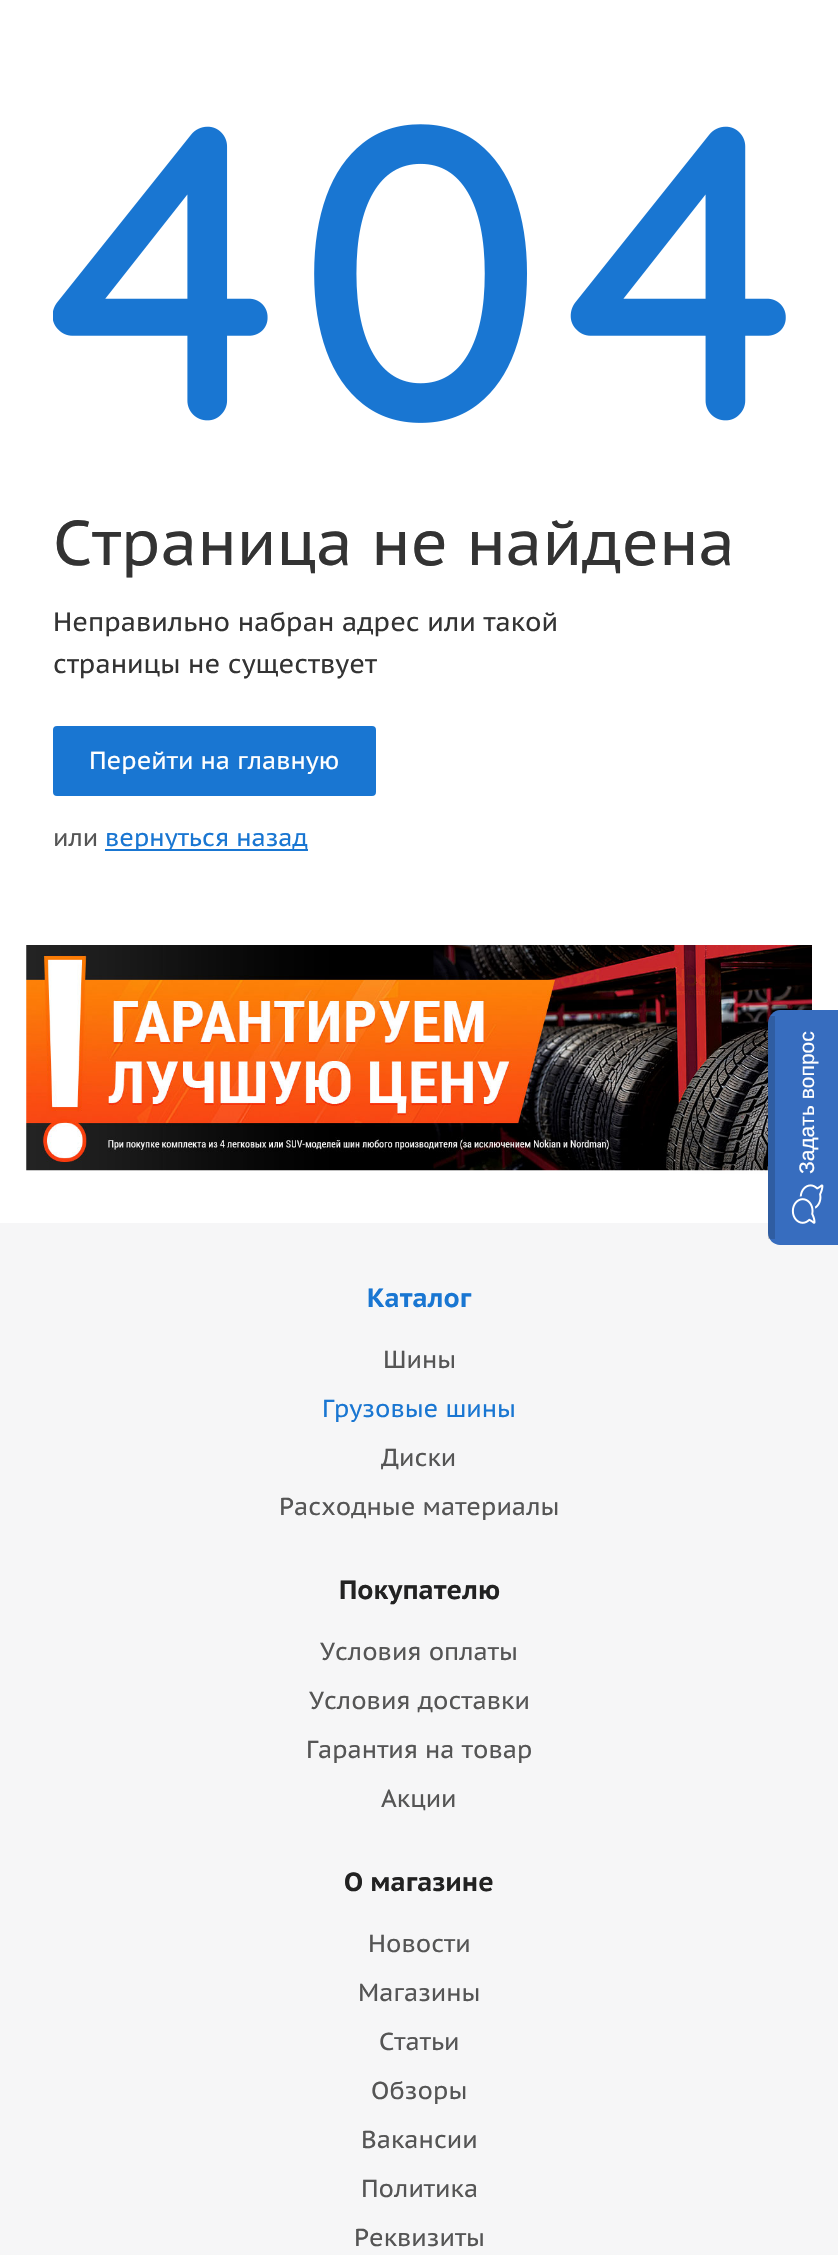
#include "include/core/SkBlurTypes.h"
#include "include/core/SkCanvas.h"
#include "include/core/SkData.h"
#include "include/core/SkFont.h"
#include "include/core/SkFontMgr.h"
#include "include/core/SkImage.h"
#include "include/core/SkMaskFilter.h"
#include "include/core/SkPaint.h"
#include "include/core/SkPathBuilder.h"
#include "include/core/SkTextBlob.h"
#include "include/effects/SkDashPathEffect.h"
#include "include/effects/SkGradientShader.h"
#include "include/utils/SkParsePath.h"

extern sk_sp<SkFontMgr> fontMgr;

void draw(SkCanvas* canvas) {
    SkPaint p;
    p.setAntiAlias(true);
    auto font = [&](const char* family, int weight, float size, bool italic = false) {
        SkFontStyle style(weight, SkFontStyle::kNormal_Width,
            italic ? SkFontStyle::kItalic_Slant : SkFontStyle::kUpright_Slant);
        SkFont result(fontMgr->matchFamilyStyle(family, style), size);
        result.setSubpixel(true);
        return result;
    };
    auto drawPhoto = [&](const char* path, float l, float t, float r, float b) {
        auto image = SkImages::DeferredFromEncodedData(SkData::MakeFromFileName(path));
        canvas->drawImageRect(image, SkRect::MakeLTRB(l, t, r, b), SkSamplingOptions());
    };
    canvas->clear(0xFFFFFFFF);
    drawPhoto("media/1.png", 53, 124, 786, 423);
    auto font1 = font("PT Sans Caption", 400, 63);
    p.setColor(0xFF333333);
    canvas->drawString("Страница не найдена", 53, 565, font1, p);
    auto font2 = font("PT Sans Caption", 400, 26.25f);
    canvas->drawString("Неправильно набран адрес или такой", 53, 631, font2, p);
    canvas->drawString("страницы не существует", 53, 673, font2, p);
    p.setColor(0xFF1976D2);
    canvas->drawRoundRect(SkRect::MakeLTRB(54, 727, 375, 795), 3, 3, p);
    p.setStyle(SkPaint::kStroke_Style);
    p.setStrokeWidth(2);
    canvas->drawRoundRect(SkRect::MakeLTRB(54, 727, 375, 795), 3, 3, p);
    auto font3 = font("PT Sans Caption", 400, 24.5f);
    p.setStyle(SkPaint::kFill_Style);
    p.setColor(0xFFFFFFFF);
    canvas->drawString("Перейти на главную", 89, 769, font3, p);
    p.setColor(0xFF555555);
    canvas->drawString("или", 53, 846, font3, p);
    p.setColor(0xFF1976D2);
    canvas->drawRect(SkRect::MakeLTRB(105, 849, 308, 851), p);
    canvas->drawString("вернуться назад", 105, 846, font3, p);
    drawPhoto("media/2.png", 26, 945, 812, 1171);
    p.setColor(0x33000000);
    p.setMaskFilter(SkMaskFilter::MakeBlur(kNormal_SkBlurStyle, 4.5f));
    canvas->drawRoundRect(SkRect::MakeLTRB(686, 1094, 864, 1164), 12, 12, p);
    p.setMaskFilter(nullptr);
    p.setColor(0xFFF6F6F7);
    canvas->drawRect(SkRect::MakeLTRB(0, 1223, 838, 2255), p);
    p.setColor(0xFF376DBF);
    canvas->drawPath(SkPathBuilder().moveTo(768, 1233).lineTo(768, 1023).cubicTo(768, 1016, 774, 1010, 780, 1010).lineTo(838, 1010).lineTo(838, 1245).lineTo(780, 1245).cubicTo(774, 1245, 768, 1240, 768, 1233).close().detach(), p);
    p.setColor(0x26000000);
    canvas->drawRect(SkRect::MakeLTRB(768, 1016, 775, 1239), p);
    auto font4 = font("Liberation Sans", 400, 21);
    p.setColor(0xFFFFFFFF);
    canvas->save();
    canvas->rotate(-90, 814, 1174);
    canvas->drawString("Задать вопрос", 814, 1174, font4, p);
    canvas->restore();
    drawPhoto("media/3.png", 791, 1184, 824, 1224);
    auto font5 = font("PT Sans Caption", 700, 26.25f);
    p.setColor(0xFF1976D2);
    canvas->drawString("Каталог", 367, 1307, font5, p);
    p.setColor(0xFF555555);
    canvas->drawString("Шины", 383, 1368, font3, p);
    p.setColor(0xFF1976D2);
    canvas->drawString("Грузовые шины", 322, 1417, font3, p);
    p.setColor(0xFF555555);
    canvas->drawString("Диски", 381, 1466, font3, p);
    canvas->drawString("Расходные материалы", 279, 1515, font3, p);
    p.setColor(0xFF222222);
    canvas->drawString("Покупателю", 339, 1599, font5, p);
    p.setColor(0xFF555555);
    {
        const struct { const char* s; float x, y; } items[] = {
            {"Условия оплаты", 320, 1660},
            {"Условия доставки", 309, 1709},
            {"Гарантия на товар", 306, 1758},
            {"Акции", 381, 1807},
        };
        for (auto [s, x, y] : items) {
            canvas->drawString(s, x, y, font3, p);
        }
    }
    p.setColor(0xFF222222);
    canvas->drawString("О магазине", 344, 1891, font5, p);
    p.setColor(0xFF555555);
    {
        const struct { const char* s; float x, y; } items[] = {
            {"Новости", 368, 1952},
            {"Магазины", 358, 2001},
            {"Статьи", 379, 2050},
            {"Обзоры", 371, 2099},
            {"Вакансии", 361, 2148},
            {"Политика", 361, 2197},
            {"Реквизиты", 354, 2246},
        };
        for (auto [s, x, y] : items) {
            canvas->drawString(s, x, y, font3, p);
        }
    }
}
